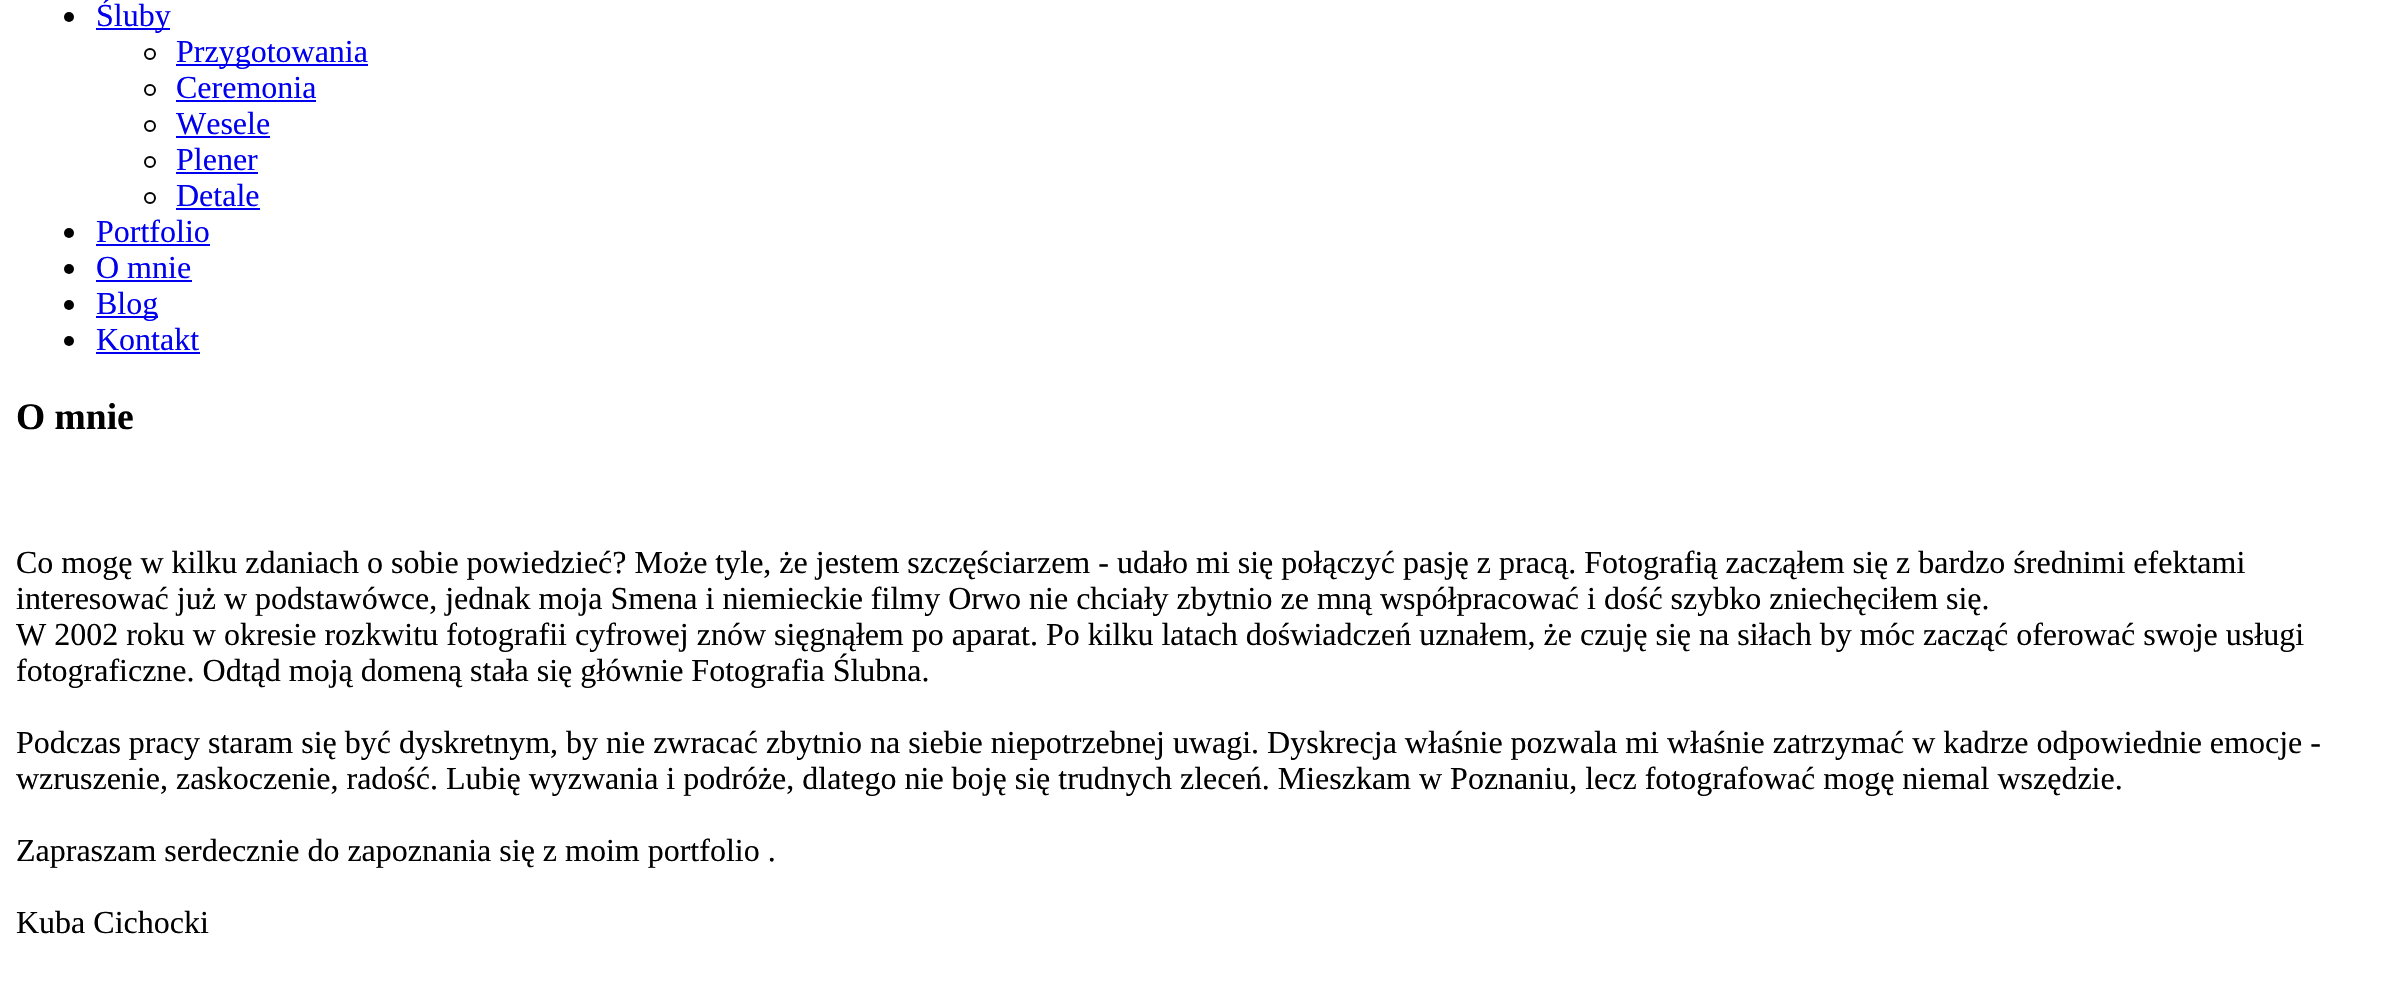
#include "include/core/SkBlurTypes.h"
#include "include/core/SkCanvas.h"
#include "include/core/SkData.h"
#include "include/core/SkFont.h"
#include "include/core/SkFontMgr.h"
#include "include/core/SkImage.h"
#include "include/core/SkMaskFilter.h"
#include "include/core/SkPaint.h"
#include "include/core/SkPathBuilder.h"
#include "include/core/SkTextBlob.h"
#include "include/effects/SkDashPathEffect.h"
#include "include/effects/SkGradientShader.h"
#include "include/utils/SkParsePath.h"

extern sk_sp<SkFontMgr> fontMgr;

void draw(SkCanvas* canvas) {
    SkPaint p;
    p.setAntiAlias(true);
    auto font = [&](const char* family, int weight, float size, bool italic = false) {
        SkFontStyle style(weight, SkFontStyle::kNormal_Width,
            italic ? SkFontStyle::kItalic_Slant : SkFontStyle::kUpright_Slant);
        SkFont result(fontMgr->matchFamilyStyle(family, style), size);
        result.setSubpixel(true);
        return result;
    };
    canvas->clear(0xFFFFFFFF);
    p.setColor(0xFF000000);
    canvas->drawCircle(69, 17, 5, p);
    p.setColor(0xFF0000EE);
    canvas->drawRect(SkRect::MakeLTRB(96, 28, 170, 30), p);
    auto font1 = font("Liberation Serif", 400, 32);
    canvas->drawString("Śluby", 96, 26, font1, p);
    p.setStyle(SkPaint::kStroke_Style);
    p.setStrokeWidth(2);
    p.setColor(0xFF000000);
    canvas->drawCircle(150, 54, 5, p);
    p.setStyle(SkPaint::kFill_Style);
    p.setColor(0xFF0000EE);
    canvas->drawRect(SkRect::MakeLTRB(176, 64, 368, 66), p);
    canvas->drawString("Przygotowania", 176, 62, font1, p);
    p.setStyle(SkPaint::kStroke_Style);
    p.setColor(0xFF000000);
    canvas->drawCircle(150, 90, 5, p);
    p.setStyle(SkPaint::kFill_Style);
    p.setColor(0xFF0000EE);
    canvas->drawString("Ceremonia", 176, 98, font1, p);
    canvas->drawRect(SkRect::MakeLTRB(176, 100, 316, 102), p);
    p.setStyle(SkPaint::kStroke_Style);
    p.setColor(0xFF000000);
    canvas->drawCircle(150, 126, 5, p);
    p.setStyle(SkPaint::kFill_Style);
    p.setColor(0xFF0000EE);
    canvas->drawString("Wesele", 176, 134, font1, p);
    canvas->drawRect(SkRect::MakeLTRB(176, 136, 270, 138), p);
    p.setStyle(SkPaint::kStroke_Style);
    p.setColor(0xFF000000);
    canvas->drawCircle(150, 162, 5, p);
    p.setStyle(SkPaint::kFill_Style);
    p.setColor(0xFF0000EE);
    canvas->drawString("Plener", 176, 170, font1, p);
    canvas->drawRect(SkRect::MakeLTRB(176, 172, 258, 174), p);
    p.setStyle(SkPaint::kStroke_Style);
    p.setColor(0xFF000000);
    canvas->drawCircle(150, 198, 5, p);
    p.setStyle(SkPaint::kFill_Style);
    p.setColor(0xFF0000EE);
    canvas->drawString("Detale", 176, 206, font1, p);
    canvas->drawRect(SkRect::MakeLTRB(176, 208, 260, 210), p);
    p.setColor(0xFF000000);
    canvas->drawCircle(69, 233, 5, p);
    p.setColor(0xFF0000EE);
    canvas->drawString("Portfolio", 96, 242, font1, p);
    canvas->drawRect(SkRect::MakeLTRB(96, 244, 210, 246), p);
    p.setColor(0xFF000000);
    canvas->drawCircle(69, 269, 5, p);
    p.setColor(0xFF0000EE);
    canvas->drawString("O mnie", 96, 278, font1, p);
    canvas->drawRect(SkRect::MakeLTRB(96, 280, 192, 282), p);
    p.setColor(0xFF000000);
    canvas->drawCircle(69, 305, 5, p);
    p.setColor(0xFF0000EE);
    canvas->drawRect(SkRect::MakeLTRB(96, 316, 158, 318), p);
    canvas->drawString("Blog", 96, 314, font1, p);
    p.setColor(0xFF000000);
    canvas->drawCircle(69, 341, 5, p);
    p.setColor(0xFF0000EE);
    canvas->drawString("Kontakt", 96, 350, font1, p);
    canvas->drawRect(SkRect::MakeLTRB(96, 352, 200, 354), p);
    auto font2 = font("Liberation Serif", 700, 37.5f);
    p.setColor(0xFF000000);
    canvas->drawString("O mnie", 16, 429, font2, p);
    {
        const struct { const char* s; float x, y; } items[] = {
            {"Co mogę w kilku zdaniach o sobie powiedzieć? Może tyle, że jestem szczęściarzem - udało mi się połączyć pasję z pracą. Fotografią zacząłem się z bardzo średnimi efektami", 16, 573},
            {"interesować już w podstawówce, jednak moja Smena i niemieckie filmy Orwo nie chciały zbytnio ze mną współpracować i dość szybko zniechęciłem się.", 16, 609},
            {"W 2002 roku w okresie rozkwitu fotografii cyfrowej znów sięgnąłem po aparat. Po kilku latach doświadczeń uznałem, że czuję się na siłach by móc zacząć oferować swoje usługi", 16, 645},
            {"fotograficzne. Odtąd moją domeną stała się głównie Fotografia Ślubna.", 16, 681},
            {"Podczas pracy staram się być dyskretnym, by nie zwracać zbytnio na siebie niepotrzebnej uwagi. Dyskrecja właśnie pozwala mi właśnie zatrzymać w kadrze odpowiednie emocje -", 16, 753},
            {"wzruszenie, zaskoczenie, radość. Lubię wyzwania i podróże, dlatego nie boję się trudnych zleceń. Mieszkam w Poznaniu, lecz fotografować mogę niemal wszędzie.", 16, 789},
            {"Zapraszam serdecznie do zapoznania się z moim portfolio .", 16, 861},
            {"Kuba Cichocki", 16, 933},
        };
        for (auto [s, x, y] : items) {
            canvas->drawString(s, x, y, font1, p);
        }
    }
}
